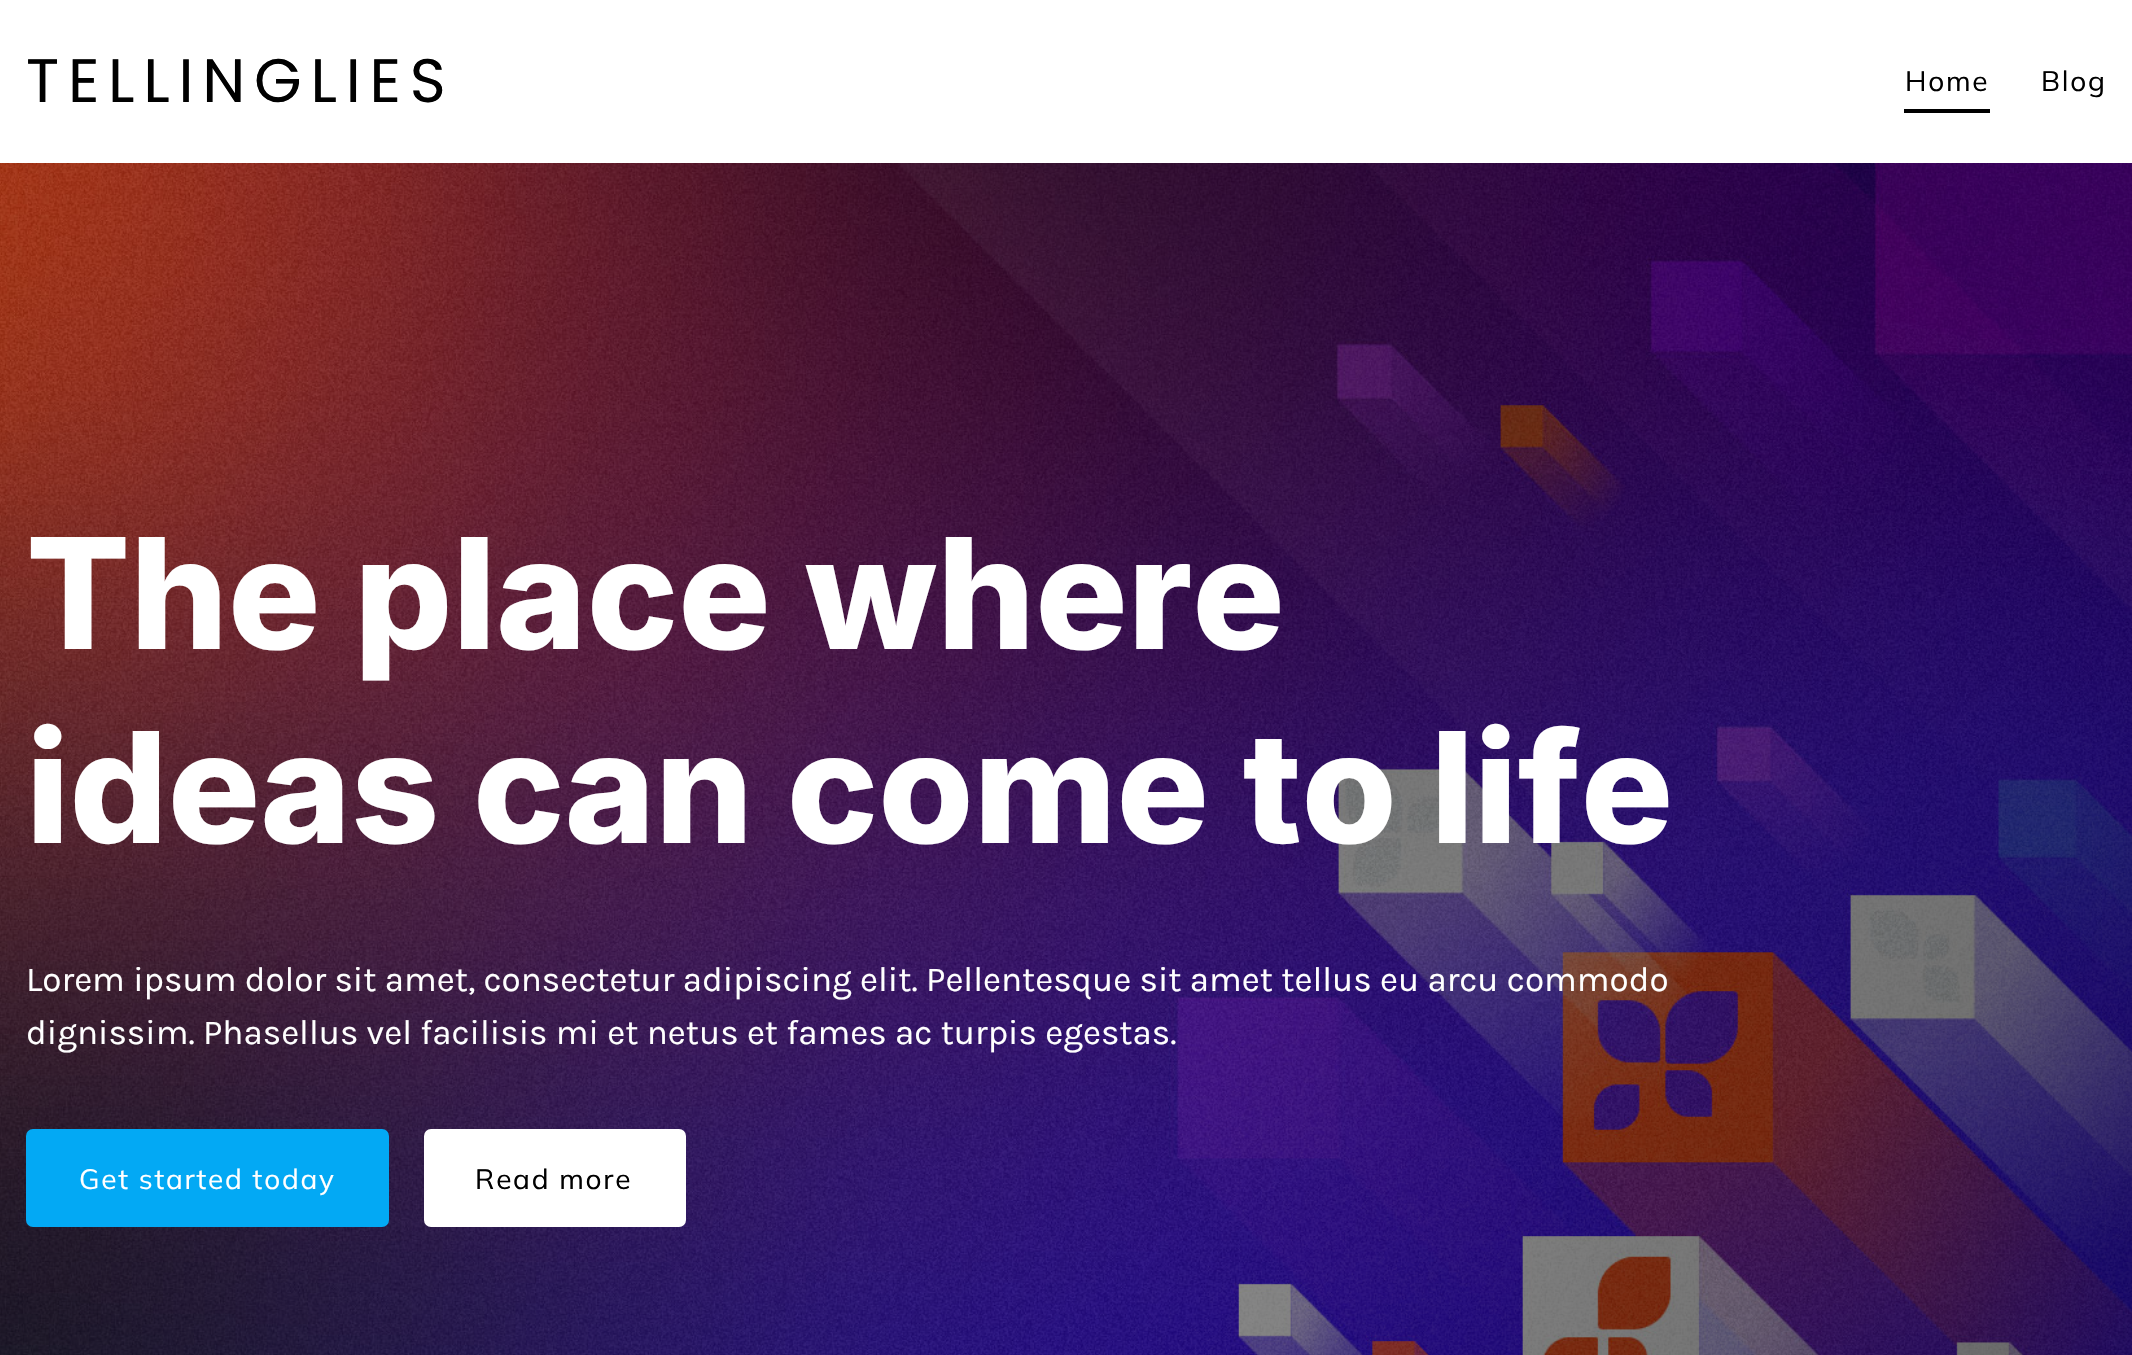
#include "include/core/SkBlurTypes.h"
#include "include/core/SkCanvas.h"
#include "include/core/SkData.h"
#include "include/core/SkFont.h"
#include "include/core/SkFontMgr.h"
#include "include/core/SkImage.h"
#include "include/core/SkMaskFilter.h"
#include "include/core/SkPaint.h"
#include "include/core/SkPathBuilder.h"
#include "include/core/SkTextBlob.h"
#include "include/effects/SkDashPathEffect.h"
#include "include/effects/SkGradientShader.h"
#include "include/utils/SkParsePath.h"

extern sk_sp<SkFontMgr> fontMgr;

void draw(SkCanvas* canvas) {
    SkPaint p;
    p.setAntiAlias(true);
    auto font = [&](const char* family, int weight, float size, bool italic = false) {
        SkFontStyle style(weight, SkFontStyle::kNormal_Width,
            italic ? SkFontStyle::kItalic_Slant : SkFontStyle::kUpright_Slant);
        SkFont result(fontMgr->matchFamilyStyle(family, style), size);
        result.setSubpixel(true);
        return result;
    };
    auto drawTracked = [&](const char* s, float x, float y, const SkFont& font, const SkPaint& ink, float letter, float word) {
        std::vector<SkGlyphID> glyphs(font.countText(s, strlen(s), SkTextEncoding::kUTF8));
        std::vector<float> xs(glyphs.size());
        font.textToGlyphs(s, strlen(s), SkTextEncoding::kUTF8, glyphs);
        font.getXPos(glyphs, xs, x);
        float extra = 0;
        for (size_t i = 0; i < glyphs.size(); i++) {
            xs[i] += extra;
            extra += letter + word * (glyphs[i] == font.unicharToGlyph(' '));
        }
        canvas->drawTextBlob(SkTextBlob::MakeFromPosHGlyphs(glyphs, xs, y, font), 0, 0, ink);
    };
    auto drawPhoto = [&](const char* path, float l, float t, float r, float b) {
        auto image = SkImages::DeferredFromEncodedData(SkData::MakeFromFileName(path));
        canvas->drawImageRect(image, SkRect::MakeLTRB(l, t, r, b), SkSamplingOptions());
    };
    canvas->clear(0xFFFFFFFF);
    auto font1 = font("Poppins", 400, 61.25f);
    p.setColor(0xFF000000);
    drawTracked("TELLINGLIES", 26, 102, font1, p, 8.75f, 0);
    auto font2 = font("Mulish", 400, 28);
    drawTracked("Home", 1905, 91, font2, p, 1.75f, 0);
    canvas->drawRect(SkRect::MakeLTRB(1904, 109, 1990, 113), p);
    drawTracked("Blog", 2041, 91, font2, p, 1.75f, 0);
    drawPhoto("media/1.png", 0, 163, 2132, 1355);
    auto font3 = font("Inter", 800, 154);
    p.setColor(0xFFFFFFFF);
    canvas->drawString("The place where", 26, 649, font3, p);
    canvas->drawString("ideas can come to life", 26, 843, font3, p);
    auto font4 = font("Karla", 400, 35);
    canvas->drawString("Lorem ipsum dolor sit amet, consectetur adipiscing elit. Pellentesque sit amet tellus eu arcu commodo", 26, 991, font4, p);
    canvas->drawString("dignissim. Phasellus vel facilisis mi et netus et fames ac turpis egestas.", 26, 1044, font4, p);
    p.setColor(0xFF03A9F4);
    canvas->drawRoundRect(SkRect::MakeLTRB(26, 1129, 389, 1227), 7, 7, p);
    p.setColor(0xFFFFFFFF);
    drawTracked("Get started today", 79, 1189, font2, p, 1.75f, 0);
    canvas->drawRoundRect(SkRect::MakeLTRB(424, 1129, 686, 1227), 7, 7, p);
    p.setColor(0xFF000000);
    drawTracked("Read more", 475, 1189, font2, p, 1.75f, 0);
}
